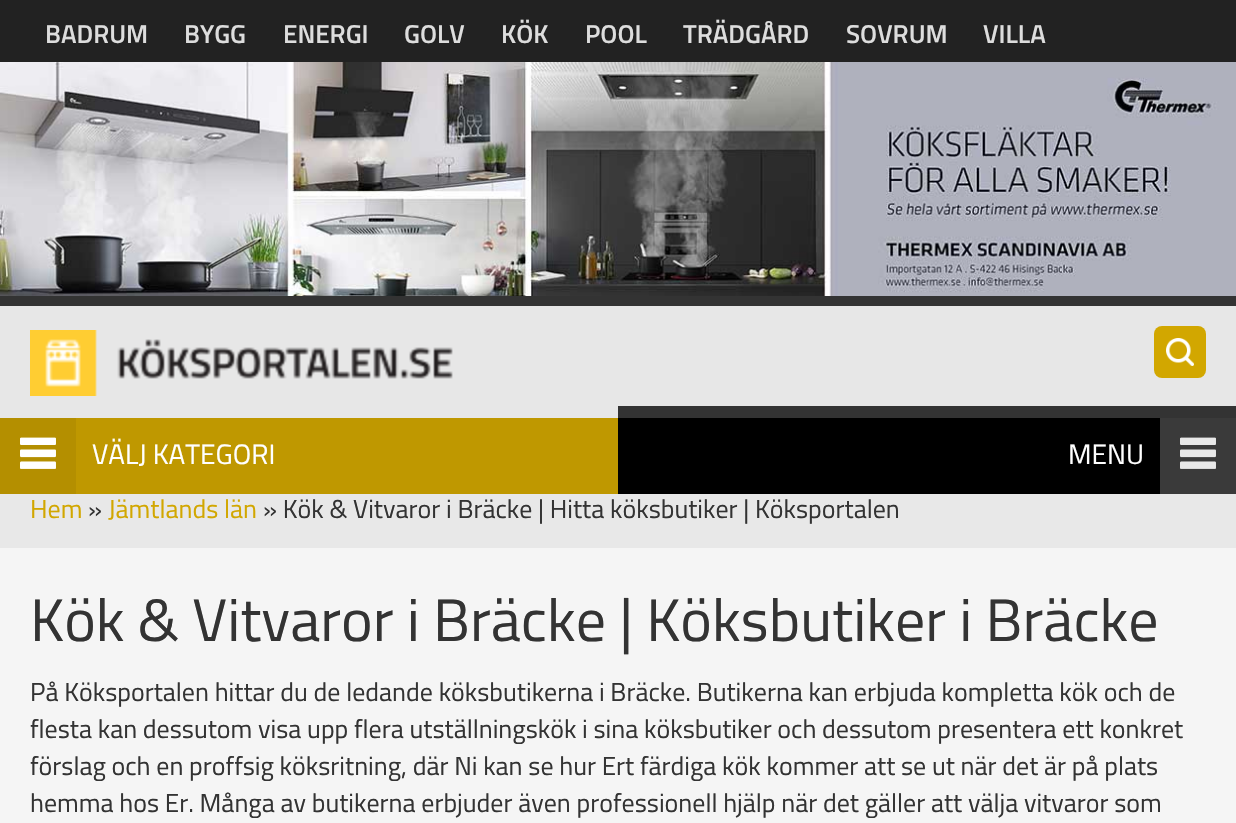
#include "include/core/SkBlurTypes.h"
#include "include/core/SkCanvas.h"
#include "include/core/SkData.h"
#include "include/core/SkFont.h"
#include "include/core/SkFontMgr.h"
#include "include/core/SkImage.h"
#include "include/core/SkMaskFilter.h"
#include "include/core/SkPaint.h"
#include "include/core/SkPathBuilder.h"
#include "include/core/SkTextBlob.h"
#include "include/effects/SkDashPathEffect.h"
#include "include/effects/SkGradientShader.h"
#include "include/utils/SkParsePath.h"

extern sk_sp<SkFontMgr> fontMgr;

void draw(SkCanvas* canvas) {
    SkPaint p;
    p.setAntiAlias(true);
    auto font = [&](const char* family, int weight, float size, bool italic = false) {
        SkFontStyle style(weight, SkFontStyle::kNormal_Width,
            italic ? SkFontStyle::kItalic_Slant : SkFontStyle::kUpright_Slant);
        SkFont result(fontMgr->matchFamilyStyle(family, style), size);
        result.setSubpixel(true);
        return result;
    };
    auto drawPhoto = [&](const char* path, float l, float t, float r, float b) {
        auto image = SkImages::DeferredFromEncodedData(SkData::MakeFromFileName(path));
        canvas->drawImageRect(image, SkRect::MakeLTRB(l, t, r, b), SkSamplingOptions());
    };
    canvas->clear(0xFF222222);
    auto font1 = font("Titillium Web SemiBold", 600, 26);
    p.setColor(0xFFDDDDDD);
    {
        const struct { const char* s; float x, y; } items[] = {
            {"BADRUM", 45, 43},
            {"BYGG", 184, 43},
            {"ENERGI", 283, 43},
            {"GOLV", 404, 43},
            {"KÖK", 501, 43},
            {"POOL", 585, 43},
            {"TRÄDGÅRD", 683, 43},
            {"SOVRUM", 846, 43},
            {"VILLA", 983, 43},
        };
        for (auto [s, x, y] : items) {
            canvas->drawString(s, x, y, font1, p);
        }
    }
    drawPhoto("media/1.png", 0, 62, 1236, 296);
    p.setColor(0xFF333333);
    canvas->drawRect(SkRect::MakeLTRB(0, 296, 1236, 418), p);
    p.setColor(0xFFE7E7E7);
    canvas->drawRect(SkRect::MakeLTRB(0, 306, 618, 418), p);
    drawPhoto("media/2.png", 30, 330, 453, 396);
    canvas->drawRect(SkRect::MakeLTRB(618, 306, 1236, 406), p);
    p.setColor(0xFFD2A700);
    canvas->drawRoundRect(SkRect::MakeLTRB(1154, 326, 1206, 378), 8, 8, p);
    drawPhoto("media/3.png", 1166, 338, 1194, 366);
    p.setColor(0xFFBF9800);
    canvas->drawRect(SkRect::MakeLTRB(76, 418, 618, 494), p);
    p.setColor(0xFFB48F00);
    canvas->drawRect(SkRect::MakeLTRB(0, 418, 76, 494), p);
    drawPhoto("media/4.png", 20, 437, 56, 469);
    auto font2 = font("Titillium Web", 400, 28);
    p.setColor(0xFFFFFFFF);
    canvas->drawString("VÄLJ KATEGORI", 92, 464, font2, p);
    p.setColor(0xFF000000);
    canvas->drawRect(SkRect::MakeLTRB(618, 418, 1160, 494), p);
    p.setColor(0xFFFFFFFF);
    canvas->drawString("MENU", 1068, 464, font2, p);
    p.setColor(0xFF3A3A3A);
    canvas->drawRect(SkRect::MakeLTRB(1160, 418, 1236, 494), p);
    drawPhoto("media/5.png", 1180, 437, 1216, 469);
    p.setColor(0xFFF5F5F5);
    canvas->drawRect(SkRect::MakeLTRB(0, 548, 1236, 823), p);
    p.setColor(0xFFE8E8E8);
    canvas->drawRect(SkRect::MakeLTRB(0, 494, 1236, 548), p);
    auto font3 = font("Titillium Web", 400, 26);
    p.setColor(0xFFD2A700);
    canvas->drawString("Hem", 30, 518, font3, p);
    p.setColor(0xFF333333);
    canvas->drawString("»", 88, 518, font3, p);
    p.setColor(0xFFD2A700);
    canvas->drawString("Jämtlands län", 108, 518, font3, p);
    p.setColor(0xFF333333);
    canvas->drawString("» Kök & Vitvaror i Bräcke | Hitta köksbutiker | Köksportalen", 263, 518, font3, p);
    auto font4 = font("Titillium Web", 400, 60);
    canvas->drawString("Kök & Vitvaror i Bräcke | Köksbutiker i Bräcke", 30, 641, font4, p);
    {
        const struct { const char* s; float x, y; } items[] = {
            {"På Köksportalen hittar du de ledande köksbutikerna i Bräcke. Butikerna kan erbjuda kompletta kök och de", 30, 701},
            {"flesta kan dessutom visa upp flera utställningskök i sina köksbutiker och dessutom presentera ett konkret", 30, 738},
            {"förslag och en proffsig köksritning, där Ni kan se hur Ert färdiga kök kommer att se ut när det är på plats", 30, 775},
            {"hemma hos Er. Många av butikerna erbjuder även professionell hjälp när det gäller att välja vitvaror som", 30, 812},
        };
        for (auto [s, x, y] : items) {
            canvas->drawString(s, x, y, font3, p);
        }
    }
}
